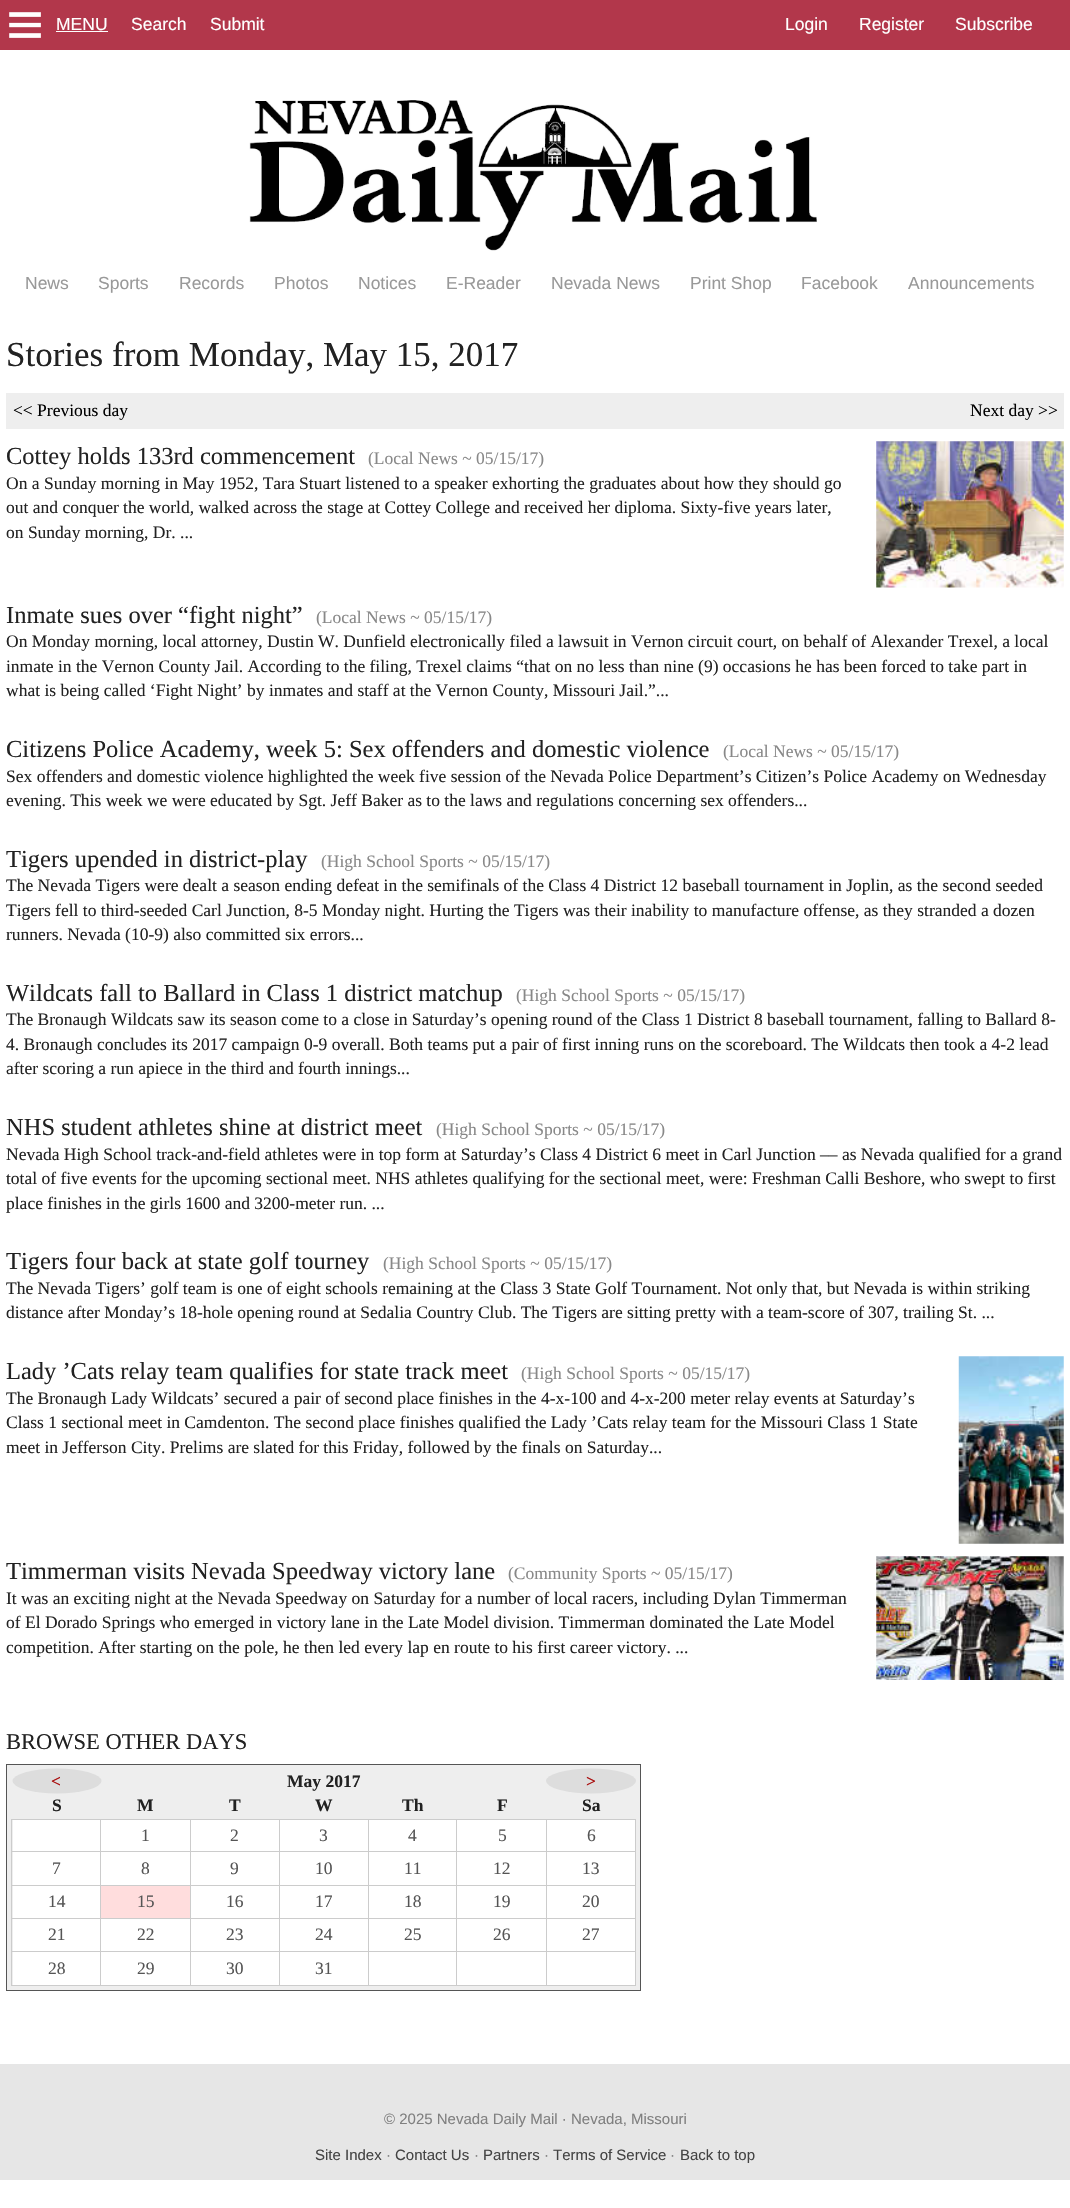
#include "include/core/SkBlurTypes.h"
#include "include/core/SkCanvas.h"
#include "include/core/SkData.h"
#include "include/core/SkFont.h"
#include "include/core/SkFontMgr.h"
#include "include/core/SkImage.h"
#include "include/core/SkMaskFilter.h"
#include "include/core/SkPaint.h"
#include "include/core/SkPathBuilder.h"
#include "include/core/SkTextBlob.h"
#include "include/effects/SkDashPathEffect.h"
#include "include/effects/SkGradientShader.h"
#include "include/utils/SkParsePath.h"

extern sk_sp<SkFontMgr> fontMgr;

void draw(SkCanvas* canvas) {
    SkPaint p;
    p.setAntiAlias(true);
    auto font = [&](const char* family, int weight, float size, bool italic = false) {
        SkFontStyle style(weight, SkFontStyle::kNormal_Width,
            italic ? SkFontStyle::kItalic_Slant : SkFontStyle::kUpright_Slant);
        SkFont result(fontMgr->matchFamilyStyle(family, style), size);
        result.setSubpixel(true);
        return result;
    };
    auto drawPhoto = [&](const char* path, float l, float t, float r, float b) {
        auto image = SkImages::DeferredFromEncodedData(SkData::MakeFromFileName(path));
        canvas->drawImageRect(image, SkRect::MakeLTRB(l, t, r, b), SkSamplingOptions());
    };
    canvas->clear(0xFFFFFFFF);
    p.setColor(0xFFB2374B);
    canvas->drawRect(SkRect::MakeLTRB(0, 0, 1070, 50), p);
    drawPhoto("media/1.png", 9, 12, 41, 38);
    auto font1 = font("Liberation Sans", 400, 17.5f);
    p.setColor(0xFFFFFFFF);
    canvas->drawString("MENU", 56, 30, font1, p);
    canvas->drawRect(SkRect::MakeLTRB(56, 31, 108, 32), p);
    {
        const struct { const char* s; float x, y; } items[] = {
            {"Search", 131, 30},
            {"Submit", 210, 30},
            {"Login", 785, 30},
            {"Register", 859, 30},
            {"Subscribe", 955, 30},
        };
        for (auto [s, x, y] : items) {
            canvas->drawString(s, x, y, font1, p);
        }
    }
    drawPhoto("media/2.png", 249, 100, 817, 251);
    p.setColor(0xFF999999);
    {
        const struct { const char* s; float x, y; } items[] = {
            {"News", 25, 289},
            {"Sports", 98, 289},
            {"Records", 179, 289},
            {"Photos", 274, 289},
            {"Notices", 358, 289},
            {"E-Reader", 446, 289},
            {"Nevada News", 551, 289},
            {"Print Shop", 690, 289},
            {"Facebook", 801, 289},
            {"Announcements", 908, 289},
        };
        for (auto [s, x, y] : items) {
            canvas->drawString(s, x, y, font1, p);
        }
    }
    auto font2 = font("Liberation Serif", 400, 35);
    p.setColor(0xFF222222);
    canvas->drawString("Stories from Monday, May 15, 2017", 6, 366, font2, p);
    p.setColor(0xFFEEEEEE);
    canvas->drawRect(SkRect::MakeLTRB(6, 393, 1064, 429), p);
    auto font3 = font("Liberation Serif", 400, 17.5f);
    p.setColor(0xFF000000);
    canvas->drawString("<< Previous day", 13, 416, font3, p);
    canvas->drawString("Next day >>", 970, 416, font3, p);
    auto font4 = font("Liberation Serif", 400, 24.5f);
    p.setColor(0xFF222222);
    canvas->drawString("Cottey holds 133rd commencement", 6, 464, font4, p);
    p.setColor(0xFF888888);
    canvas->drawString("(Local News ~ 05/15/17)", 368, 464, font3, p);
    drawPhoto("media/3.png", 876, 441, 1064, 588);
    p.setColor(0xFF222222);
    {
        const struct { const char* s; float x, y; } items[] = {
            {"On a Sunday morning in May 1952, Tara Stuart listened to a speaker exhorting the graduates about how they should go", 6, 489},
            {"out and conquer the world, walked across the stage at Cottey College and received her diploma. Sixty-five years later,", 6, 513},
            {"on Sunday morning, Dr. ...", 6, 538},
        };
        for (auto [s, x, y] : items) {
            canvas->drawString(s, x, y, font3, p);
        }
    }
    canvas->drawString("Inmate sues over “fight night”", 6, 623, font4, p);
    p.setColor(0xFF888888);
    canvas->drawString("(Local News ~ 05/15/17)", 316, 623, font3, p);
    p.setColor(0xFF222222);
    {
        const struct { const char* s; float x, y; } items[] = {
            {"On Monday morning, local attorney, Dustin W. Dunfield electronically filed a lawsuit in Vernon circuit court, on behalf of Alexander Trexel, a local", 6, 647},
            {"inmate in the Vernon County Jail. According to the filing, Trexel claims “that on no less than nine (9) occasions he has been forced to take part in", 6, 672},
            {"what is being called ‘Fight Night’ by inmates and staff at the Vernon County, Missouri Jail.”...", 6, 696},
        };
        for (auto [s, x, y] : items) {
            canvas->drawString(s, x, y, font3, p);
        }
    }
    canvas->drawString("Citizens Police Academy, week 5: Sex offenders and domestic violence", 6, 757, font4, p);
    p.setColor(0xFF888888);
    canvas->drawString("(Local News ~ 05/15/17)", 723, 757, font3, p);
    p.setColor(0xFF222222);
    canvas->drawString("Sex offenders and domestic violence highlighted the week five session of the Nevada Police Department’s Citizen’s Police Academy on Wednesday", 6, 782, font3, p);
    canvas->drawString("evening. This week we were educated by Sgt. Jeff Baker as to the laws and regulations concerning sex offenders...", 6, 806, font3, p);
    canvas->drawString("Tigers upended in district-play", 6, 867, font4, p);
    p.setColor(0xFF888888);
    canvas->drawString("(High School Sports ~ 05/15/17)", 321, 867, font3, p);
    p.setColor(0xFF222222);
    {
        const struct { const char* s; float x, y; } items[] = {
            {"The Nevada Tigers were dealt a season ending defeat in the semifinals of the Class 4 District 12 baseball tournament in Joplin, as the second seeded", 6, 891},
            {"Tigers fell to third-seeded Carl Junction, 8-5 Monday night. Hurting the Tigers was their inability to manufacture offense, as they stranded a dozen", 6, 916},
            {"runners. Nevada (10-9) also committed six errors...", 6, 940},
        };
        for (auto [s, x, y] : items) {
            canvas->drawString(s, x, y, font3, p);
        }
    }
    canvas->drawString("Wildcats fall to Ballard in Class 1 district matchup", 6, 1001, font4, p);
    p.setColor(0xFF888888);
    canvas->drawString("(High School Sports ~ 05/15/17)", 516, 1001, font3, p);
    p.setColor(0xFF222222);
    {
        const struct { const char* s; float x, y; } items[] = {
            {"The Bronaugh Wildcats saw its season come to a close in Saturday’s opening round of the Class 1 District 8 baseball tournament, falling to Ballard 8-", 6, 1025},
            {"4. Bronaugh concludes its 2017 campaign 0-9 overall. Both teams put a pair of first inning runs on the scoreboard. The Wildcats then took a 4-2 lead", 6, 1050},
            {"after scoring a run apiece in the third and fourth innings...", 6, 1074},
        };
        for (auto [s, x, y] : items) {
            canvas->drawString(s, x, y, font3, p);
        }
    }
    canvas->drawString("NHS student athletes shine at district meet", 6, 1135, font4, p);
    p.setColor(0xFF888888);
    canvas->drawString("(High School Sports ~ 05/15/17)", 436, 1135, font3, p);
    p.setColor(0xFF222222);
    {
        const struct { const char* s; float x, y; } items[] = {
            {"Nevada High School track-and-field athletes were in top form at Saturday’s Class 4 District 6 meet in Carl Junction –– as Nevada qualified for a grand", 6, 1160},
            {"total of five events for the upcoming sectional meet. NHS athletes qualifying for the sectional meet, were: Freshman Calli Beshore, who swept to first", 6, 1184},
            {"place finishes in the girls 1600 and 3200-meter run. ...", 6, 1209},
        };
        for (auto [s, x, y] : items) {
            canvas->drawString(s, x, y, font3, p);
        }
    }
    canvas->drawString("Tigers four back at state golf tourney", 6, 1269, font4, p);
    p.setColor(0xFF888888);
    canvas->drawString("(High School Sports ~ 05/15/17)", 383, 1269, font3, p);
    p.setColor(0xFF222222);
    canvas->drawString("The Nevada Tigers’ golf team is one of eight schools remaining at the Class 3 State Golf Tournament. Not only that, but Nevada is within striking", 6, 1294, font3, p);
    canvas->drawString("distance after Monday’s 18-hole opening round at Sedalia Country Club. The Tigers are sitting pretty with a team-score of 307, trailing St. ...", 6, 1318, font3, p);
    canvas->drawString("Lady ’Cats relay team qualifies for state track meet", 6, 1379, font4, p);
    p.setColor(0xFF888888);
    canvas->drawString("(High School Sports ~ 05/15/17)", 521, 1379, font3, p);
    drawPhoto("media/4.png", 958, 1356, 1064, 1544);
    p.setColor(0xFF222222);
    {
        const struct { const char* s; float x, y; } items[] = {
            {"The Bronaugh Lady Wildcats’ secured a pair of second place finishes in the 4-x-100 and 4-x-200 meter relay events at Saturday’s", 6, 1404},
            {"Class 1 sectional meet in Camdenton. The second place finishes qualified the Lady ’Cats relay team for the Missouri Class 1 State", 6, 1428},
            {"meet in Jefferson City. Prelims are slated for this Friday, followed by the finals on Saturday...", 6, 1453},
        };
        for (auto [s, x, y] : items) {
            canvas->drawString(s, x, y, font3, p);
        }
    }
    canvas->drawString("Timmerman visits Nevada Speedway victory lane", 6, 1579, font4, p);
    p.setColor(0xFF888888);
    canvas->drawString("(Community Sports ~ 05/15/17)", 508, 1579, font3, p);
    drawPhoto("media/5.png", 876, 1556, 1064, 1680);
    p.setColor(0xFF222222);
    {
        const struct { const char* s; float x, y; } items[] = {
            {"It was an exciting night at the Nevada Speedway on Saturday for a number of local racers, including Dylan Timmerman", 6, 1604},
            {"of El Dorado Springs who emerged in victory lane in the Late Model division. Timmerman dominated the Late Model", 6, 1628},
            {"competition. After starting on the pole, he then led every lap en route to his first career victory. ...", 6, 1653},
        };
        for (auto [s, x, y] : items) {
            canvas->drawString(s, x, y, font3, p);
        }
    }
    auto font5 = font("Liberation Serif", 400, 22.5f);
    canvas->drawString("BROWSE OTHER DAYS", 6, 1749, font5, p);
    p.setColor(0xFFEEEEEE);
    canvas->drawRect(SkRect::MakeLTRB(6.5f, 1764.5f, 640.5f, 1990.5f), p);
    p.setStyle(SkPaint::kStroke_Style);
    p.setStrokeWidth(1);
    p.setColor(0xFF555555);
    canvas->drawRect(SkRect::MakeLTRB(6.5f, 1764.5f, 640.5f, 1990.5f), p);
    p.setStyle(SkPaint::kFill_Style);
    p.setColor(0xFFDDDDDD);
    canvas->drawOval(SkRect::MakeLTRB(12.5f, 1768.5f, 101.5f, 1793.5f), p);
    auto font6 = font("Liberation Serif", 700, 17.5f);
    p.setColor(0xFFAA1111);
    canvas->drawString("<", 51, 1787, font6, p);
    p.setColor(0xFF222222);
    canvas->drawString("May 2017", 287, 1787, font6, p);
    p.setColor(0xFFDDDDDD);
    canvas->drawOval(SkRect::MakeLTRB(546, 1768.5f, 636, 1793.5f), p);
    p.setColor(0xFFAA1111);
    canvas->drawString(">", 586, 1787, font6, p);
    p.setColor(0xFF222222);
    {
        const struct { const char* s; float x, y; } items[] = {
            {"S", 52, 1811},
            {"M", 137, 1811},
            {"T", 229, 1811},
            {"W", 315, 1811},
            {"Th", 402, 1811},
            {"F", 497, 1811},
            {"Sa", 582, 1811},
        };
        for (auto [s, x, y] : items) {
            canvas->drawString(s, x, y, font6, p);
        }
    }
    {
        const struct { float l, t, r, b; SkColor color; } items[] = {
            {13, 1820, 635, 1985, 0xFFFFFFFF},
            {546, 1819, 636, 1820, 0xFFCCCCCC},
            {546, 1851, 636, 1852, 0xFFCCCCCC},
            {546, 1885, 636, 1886, 0xFFCCCCCC},
            {546, 1918, 636, 1919, 0xFFCCCCCC},
            {546, 1951, 636, 1952, 0xFFCCCCCC},
            {635, 1951, 636, 1986, 0xFFCCCCCC},
            {546, 1985, 636, 1986, 0xFFCCCCCC},
            {546, 1951, 547, 1986, 0xFFCCCCCC},
            {456, 1951, 548, 1952, 0xFFCCCCCC},
            {546, 1918, 547, 1953, 0xFFCCCCCC},
            {456, 1918, 548, 1919, 0xFFCCCCCC},
            {546, 1885, 547, 1919, 0xFFCCCCCC},
            {456, 1885, 548, 1886, 0xFFCCCCCC},
            {546, 1851, 547, 1886, 0xFFCCCCCC},
            {456, 1851, 548, 1852, 0xFFCCCCCC},
            {546, 1819, 547, 1853, 0xFFCCCCCC},
            {456, 1819, 548, 1820, 0xFFCCCCCC},
            {456, 1985, 548, 1986, 0xFFCCCCCC},
            {456, 1951, 457, 1986, 0xFFCCCCCC},
            {368, 1951, 458, 1952, 0xFFCCCCCC},
            {456, 1918, 457, 1953, 0xFFCCCCCC},
            {368, 1918, 458, 1919, 0xFFCCCCCC},
            {456, 1885, 457, 1919, 0xFFCCCCCC},
            {368, 1885, 458, 1886, 0xFFCCCCCC},
            {456, 1851, 457, 1886, 0xFFCCCCCC},
            {368, 1851, 458, 1852, 0xFFCCCCCC},
            {456, 1819, 457, 1853, 0xFFCCCCCC},
            {368, 1819, 458, 1820, 0xFFCCCCCC},
            {368, 1985, 458, 1986, 0xFFCCCCCC},
            {368, 1951, 369, 1986, 0xFFCCCCCC},
            {279, 1951, 369, 1952, 0xFFCCCCCC},
            {368, 1918, 369, 1953, 0xFFCCCCCC},
            {279, 1918, 369, 1919, 0xFFCCCCCC},
            {368, 1885, 369, 1919, 0xFFCCCCCC},
            {279, 1885, 369, 1886, 0xFFCCCCCC},
            {368, 1851, 369, 1886, 0xFFCCCCCC},
            {279, 1851, 369, 1852, 0xFFCCCCCC},
            {368, 1819, 369, 1853, 0xFFCCCCCC},
            {279, 1819, 369, 1820, 0xFFCCCCCC},
            {279, 1985, 369, 1986, 0xFFCCCCCC},
            {279, 1951, 280, 1986, 0xFFCCCCCC},
            {190, 1951, 280, 1952, 0xFFCCCCCC},
            {279, 1918, 280, 1953, 0xFFCCCCCC},
            {190, 1918, 280, 1919, 0xFFCCCCCC},
            {279, 1885, 280, 1919, 0xFFCCCCCC},
            {190, 1885, 280, 1886, 0xFFCCCCCC},
            {279, 1851, 280, 1886, 0xFFCCCCCC},
            {190, 1851, 280, 1852, 0xFFCCCCCC},
            {279, 1819, 280, 1853, 0xFFCCCCCC},
            {190, 1819, 280, 1820, 0xFFCCCCCC},
            {190, 1985, 280, 1986, 0xFFCCCCCC},
            {190, 1951, 191, 1986, 0xFFCCCCCC},
            {100, 1951, 191, 1952, 0xFFCCCCCC},
            {190, 1918, 191, 1953, 0xFFCCCCCC},
            {100, 1918, 191, 1919, 0xFFCCCCCC},
            {190, 1885, 191, 1919, 0xFFCCCCCC},
            {100, 1885, 191, 1886, 0xFFCCCCCC},
            {190, 1851, 191, 1886, 0xFFCCCCCC},
            {100, 1851, 191, 1852, 0xFFCCCCCC},
            {190, 1819, 191, 1853, 0xFFCCCCCC},
            {100, 1819, 191, 1820, 0xFFCCCCCC},
            {100, 1985, 191, 1986, 0xFFCCCCCC},
            {100, 1951, 101, 1986, 0xFFCCCCCC},
            {11, 1951, 101, 1952, 0xFFCCCCCC},
            {100, 1918, 101, 1953, 0xFFCCCCCC},
            {11, 1918, 101, 1919, 0xFFCCCCCC},
            {100, 1885, 101, 1919, 0xFFCCCCCC},
            {11, 1885, 101, 1886, 0xFFCCCCCC},
            {100, 1851, 101, 1886, 0xFFCCCCCC},
            {11, 1851, 101, 1852, 0xFFCCCCCC},
            {100, 1819, 101, 1853, 0xFFCCCCCC},
            {11, 1819, 101, 1820, 0xFFCCCCCC},
            {11, 1985, 101, 1986, 0xFFCCCCCC},
            {11, 1951, 12, 1986, 0xFFCCCCCC},
            {11, 1918, 12, 1953, 0xFFCCCCCC},
            {11, 1885, 12, 1919, 0xFFCCCCCC},
            {11, 1851, 12, 1886, 0xFFCCCCCC},
            {11, 1819, 12, 1853, 0xFFCCCCCC},
        };
        for (auto [l, t, r, b, color] : items) {
            p.setColor(color);
            canvas->drawRect(SkRect::MakeLTRB(l, t, r, b), p);
        }
    }
    p.setColor(0xFF555555);
    {
        const struct { const char* s; float x, y; } items[] = {
            {"1", 141, 1841},
            {"2", 230, 1841},
            {"3", 319, 1841},
            {"4", 408, 1841},
            {"5", 498, 1841},
        };
        for (auto [s, x, y] : items) {
            canvas->drawString(s, x, y, font3, p);
        }
    }
    {
        const struct { float l, t, r, b; SkColor color; } items[] = {
            {635, 1918, 636, 1953, 0xFFCCCCCC},
            {635, 1885, 636, 1919, 0xFFCCCCCC},
            {635, 1851, 636, 1886, 0xFFCCCCCC},
            {635, 1819, 636, 1853, 0xFFCCCCCC},
        };
        for (auto [l, t, r, b, color] : items) {
            p.setColor(color);
            canvas->drawRect(SkRect::MakeLTRB(l, t, r, b), p);
        }
    }
    p.setColor(0xFF555555);
    {
        const struct { const char* s; float x, y; } items[] = {
            {"6", 587, 1841},
            {"7", 52, 1874},
            {"8", 141, 1874},
            {"9", 230, 1874},
            {"10", 315, 1874},
            {"11", 404, 1874},
            {"12", 493, 1874},
            {"13", 582, 1874},
            {"14", 48, 1907},
        };
        for (auto [s, x, y] : items) {
            canvas->drawString(s, x, y, font3, p);
        }
    }
    p.setColor(0xFFFFDDDD);
    canvas->drawRect(SkRect::MakeLTRB(101, 1886, 190, 1918), p);
    p.setColor(0xFF555555);
    {
        const struct { const char* s; float x, y; } items[] = {
            {"15", 137, 1907},
            {"16", 226, 1907},
            {"17", 315, 1907},
            {"18", 404, 1907},
            {"19", 493, 1907},
            {"20", 582, 1907},
            {"21", 48, 1940},
            {"22", 137, 1940},
            {"23", 226, 1940},
            {"24", 315, 1940},
            {"25", 404, 1940},
            {"26", 493, 1940},
            {"27", 582, 1940},
            {"28", 48, 1974},
            {"29", 137, 1974},
            {"30", 226, 1974},
            {"31", 315, 1974},
        };
        for (auto [s, x, y] : items) {
            canvas->drawString(s, x, y, font3, p);
        }
    }
    p.setColor(0xFFE6E6E6);
    canvas->drawRect(SkRect::MakeLTRB(0, 2064, 1070, 2180), p);
    auto font7 = font("Liberation Sans", 400, 15);
    p.setColor(0xFF808080);
    canvas->drawString("© 2025 Nevada Daily Mail · Nevada, Missouri", 384, 2124, font7, p);
    p.setColor(0xFF444444);
    canvas->drawString("Site Index", 315, 2160, font7, p);
    p.setColor(0xFF808080);
    canvas->drawString("·", 386, 2160, font7, p);
    p.setColor(0xFF444444);
    canvas->drawString("Contact Us", 395, 2160, font7, p);
    p.setColor(0xFF808080);
    canvas->drawString("·", 474, 2160, font7, p);
    p.setColor(0xFF444444);
    canvas->drawString("Partners", 483, 2160, font7, p);
    p.setColor(0xFF808080);
    canvas->drawString("·", 544, 2160, font7, p);
    p.setColor(0xFF444444);
    canvas->drawString("Terms of Service", 553, 2160, font7, p);
    p.setColor(0xFF808080);
    canvas->drawString("·", 670, 2160, font7, p);
    p.setColor(0xFF444444);
    canvas->drawString("Back to top", 680, 2160, font7, p);
}
